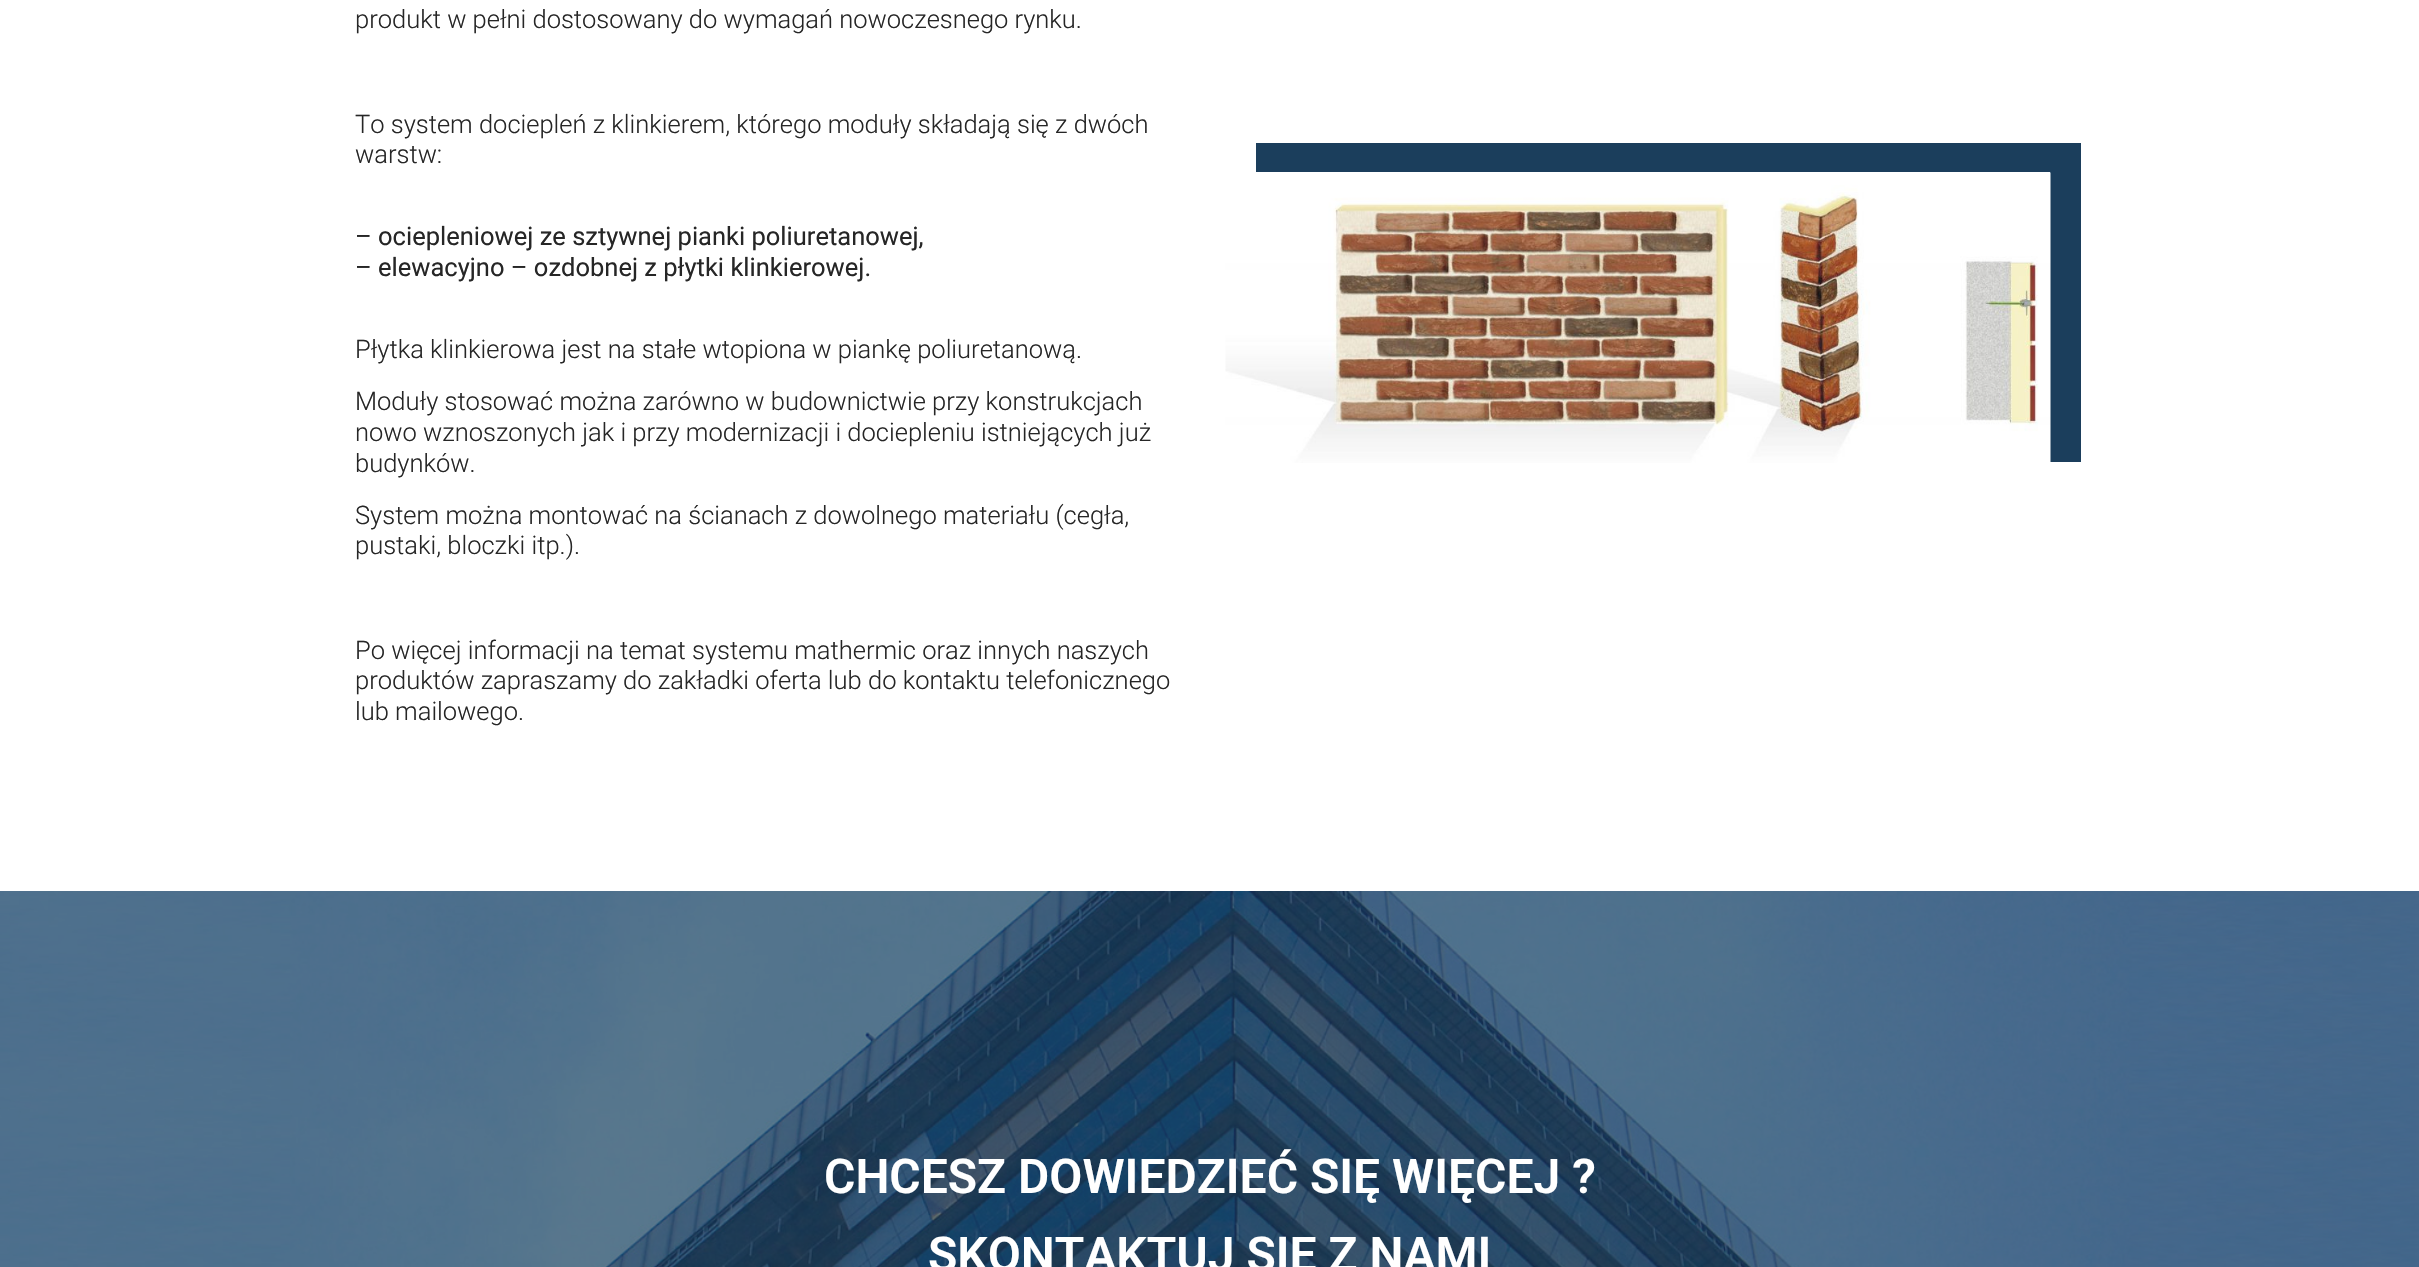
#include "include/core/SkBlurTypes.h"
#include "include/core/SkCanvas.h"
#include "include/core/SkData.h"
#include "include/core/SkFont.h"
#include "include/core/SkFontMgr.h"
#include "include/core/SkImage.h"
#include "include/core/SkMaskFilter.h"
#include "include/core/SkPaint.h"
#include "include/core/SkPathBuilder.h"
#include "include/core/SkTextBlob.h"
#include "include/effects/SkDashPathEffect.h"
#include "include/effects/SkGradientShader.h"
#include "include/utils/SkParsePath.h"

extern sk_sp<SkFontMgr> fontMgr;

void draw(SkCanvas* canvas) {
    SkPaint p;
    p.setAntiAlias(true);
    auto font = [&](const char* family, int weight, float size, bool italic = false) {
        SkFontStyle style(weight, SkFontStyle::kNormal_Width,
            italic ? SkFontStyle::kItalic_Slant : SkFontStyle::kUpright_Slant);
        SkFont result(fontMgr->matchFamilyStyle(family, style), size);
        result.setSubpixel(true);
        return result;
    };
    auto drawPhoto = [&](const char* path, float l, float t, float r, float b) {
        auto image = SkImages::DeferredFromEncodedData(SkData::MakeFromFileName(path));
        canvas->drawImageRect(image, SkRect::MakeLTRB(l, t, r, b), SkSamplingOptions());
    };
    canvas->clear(0xFFFFFFFF);
    auto font1 = font("Roboto", 300, 25.5f);
    p.setColor(0xFF262626);
    {
        const struct { const char* s; float x, y; } items[] = {
            {"produkt w pełni dostosowany do wymagań nowoczesnego rynku.", 355, 28},
            {"To system dociepleń z klinkierem, którego moduły składają się z dwóch", 355, 133},
            {"warstw:", 355, 163},
        };
        for (auto [s, x, y] : items) {
            canvas->drawString(s, x, y, font1, p);
        }
    }
    auto font2 = font("Roboto", 400, 25.5f);
    canvas->drawString("– ociepleniowej ze sztywnej pianki poliuretanowej,", 355, 245, font2, p);
    canvas->drawString("– elewacyjno – ozdobnej z płytki klinkierowej.", 355, 276, font2, p);
    {
        const struct { const char* s; float x, y; } items[] = {
            {"Płytka klinkierowa jest na stałe wtopiona w piankę poliuretanową.", 355, 358},
            {"Moduły stosować można zarówno w budownictwie przy konstrukcjach", 355, 410},
            {"nowo wznoszonych jak i przy modernizacji i dociepleniu istniejących już", 355, 441},
            {"budynków.", 355, 472},
            {"System można montować na ścianach z dowolnego materiału (cegła,", 355, 524},
            {"pustaki, bloczki itp.).", 355, 554},
            {"Po więcej informacji na temat systemu mathermic oraz innych naszych", 355, 659},
            {"produktów zapraszamy do zakładki oferta lub do kontaktu telefonicznego", 355, 689},
            {"lub mailowego.", 355, 720},
        };
        for (auto [s, x, y] : items) {
            canvas->drawString(s, x, y, font1, p);
        }
    }
    p.setColor(0xFF1B3E5C);
    canvas->drawPath(SkPathBuilder().moveTo(1256, 143).lineTo(1256, 172).lineTo(2050, 172).lineTo(2050, 462).lineTo(2081, 462).lineTo(2081, 143).close().detach(), p);
    drawPhoto("media/1.png", 1225, 172, 2051, 463);
    drawPhoto("media/2.png", 0, 891, 2419, 1267);
    auto font3 = font("Roboto", 600, 48);
    p.setColor(0xFFFFFFFF);
    canvas->drawString("CHCESZ DOWIEDZIEĆ SIĘ WIĘCEJ ?", 824, 1193, font3, p);
    canvas->drawString("SKONTAKTUJ SIĘ Z NAMI", 928, 1271, font3, p);
}
